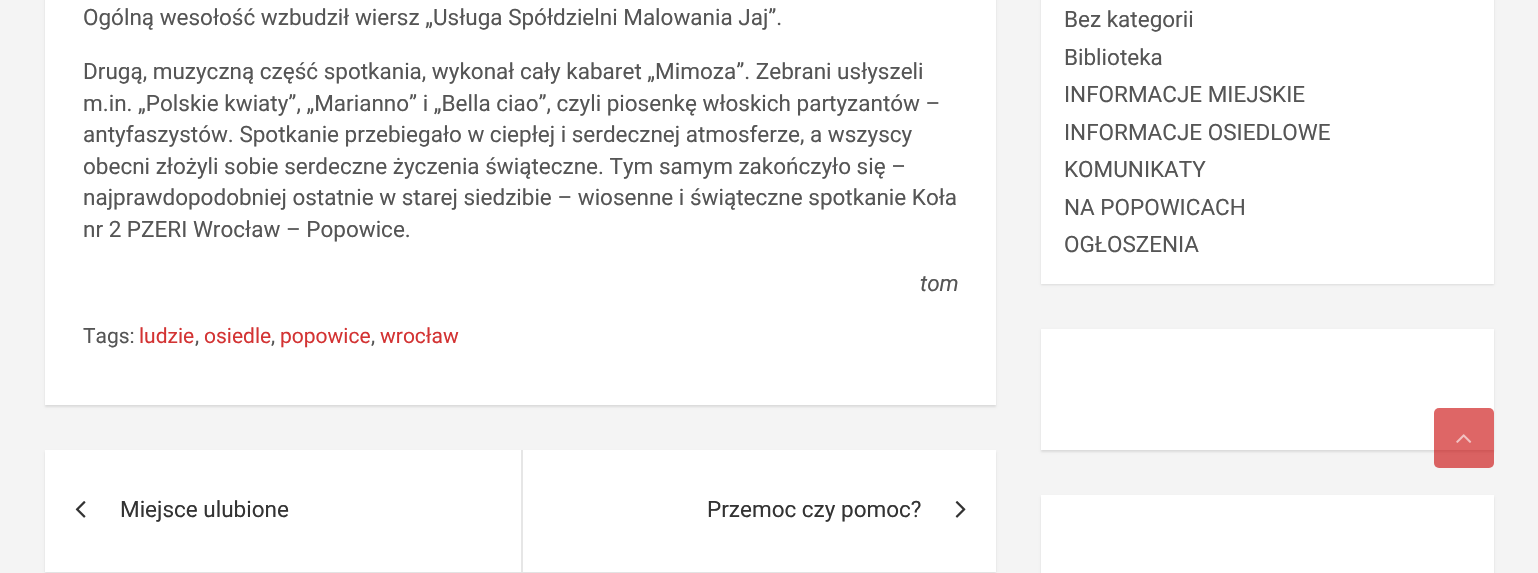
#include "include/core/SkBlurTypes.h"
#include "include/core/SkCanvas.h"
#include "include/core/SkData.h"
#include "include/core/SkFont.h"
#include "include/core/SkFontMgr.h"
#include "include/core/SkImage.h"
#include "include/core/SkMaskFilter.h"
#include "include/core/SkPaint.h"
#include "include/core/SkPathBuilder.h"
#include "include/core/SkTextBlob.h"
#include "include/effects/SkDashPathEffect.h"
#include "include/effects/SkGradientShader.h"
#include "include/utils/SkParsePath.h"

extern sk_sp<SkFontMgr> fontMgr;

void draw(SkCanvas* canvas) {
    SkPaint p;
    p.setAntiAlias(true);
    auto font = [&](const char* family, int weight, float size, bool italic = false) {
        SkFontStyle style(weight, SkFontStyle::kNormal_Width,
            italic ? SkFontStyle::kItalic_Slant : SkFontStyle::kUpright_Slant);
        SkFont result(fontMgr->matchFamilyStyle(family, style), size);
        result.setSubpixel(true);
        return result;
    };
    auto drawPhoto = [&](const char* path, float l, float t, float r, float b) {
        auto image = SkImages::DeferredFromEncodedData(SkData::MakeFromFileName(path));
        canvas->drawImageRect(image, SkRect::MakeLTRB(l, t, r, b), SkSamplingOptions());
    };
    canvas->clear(0xFFF4F4F4);
    p.setColor(0x1A000000);
    p.setMaskFilter(SkMaskFilter::MakeBlur(kNormal_SkBlurStyle, 1));
    canvas->drawRect(SkRect::MakeLTRB(45, -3, 996, 407), p);
    p.setMaskFilter(nullptr);
    p.setColor(0xFFFFFFFF);
    canvas->drawRect(SkRect::MakeLTRB(45, 0, 996, 405), p);
    auto font1 = font("Roboto", 400, 22.5f);
    p.setColor(0xFF555555);
    {
        const struct { const char* s; float x, y; } items[] = {
            {"Ogólną wesołość wzbudził wiersz „Usługa Spółdzielni Malowania Jaj”.", 83, 25},
            {"Drugą, muzyczną część spotkania, wykonał cały kabaret „Mimoza”. Zebrani usłyszeli", 83, 79},
            {"m.in. „Polskie kwiaty”, „Marianno” i „Bella ciao”, czyli piosenkę włoskich partyzantów –", 83, 111},
            {"antyfaszystów. Spotkanie przebiegało w ciepłej i serdecznej atmosferze, a wszyscy", 83, 142},
            {"obecni złożyli sobie serdeczne życzenia świąteczne. Tym samym zakończyło się –", 83, 174},
            {"najprawdopodobniej ostatnie w starej siedzibie – wiosenne i świąteczne spotkanie Koła", 83, 205},
            {"nr 2 PZERI Wrocław – Popowice.", 83, 237},
        };
        for (auto [s, x, y] : items) {
            canvas->drawString(s, x, y, font1, p);
        }
    }
    auto font2 = font("Roboto", 400, 22.5f, true);
    canvas->drawString("tom", 920, 291, font2, p);
    auto font3 = font("Roboto", 400, 21);
    canvas->drawString("Tags:", 83, 343, font3, p);
    p.setColor(0xFFD33333);
    canvas->drawString("ludzie", 139, 343, font3, p);
    p.setColor(0xFF555555);
    canvas->drawString(",", 195, 343, font3, p);
    p.setColor(0xFFD33333);
    canvas->drawString("osiedle", 204, 343, font3, p);
    p.setColor(0xFF555555);
    canvas->drawString(",", 271, 343, font3, p);
    p.setColor(0xFFD33333);
    canvas->drawString("popowice", 280, 343, font3, p);
    p.setColor(0xFF555555);
    canvas->drawString(",", 371, 343, font3, p);
    p.setColor(0xFFD33333);
    canvas->drawString("wrocław", 380, 343, font3, p);
    p.setColor(0x1A000000);
    p.setMaskFilter(SkMaskFilter::MakeBlur(kNormal_SkBlurStyle, 1));
    canvas->drawRect(SkRect::MakeLTRB(45, 452, 996, 573), p);
    p.setMaskFilter(nullptr);
    p.setColor(0xFFFFFFFF);
    canvas->drawRect(SkRect::MakeLTRB(45, 450, 996, 572), p);
    drawPhoto("media/1.png", 75, 501, 86, 518);
    p.setColor(0xFF333333);
    canvas->drawString("Miejsce ulubione", 120, 517, font1, p);
    p.setColor(0xFFE6E6E6);
    canvas->drawRect(SkRect::MakeLTRB(521, 450, 523, 572), p);
    p.setColor(0xFF333333);
    canvas->drawString("Przemoc czy pomoc?", 707, 517, font1, p);
    drawPhoto("media/2.png", 955, 501, 966, 518);
    p.setColor(0x1A000000);
    p.setMaskFilter(SkMaskFilter::MakeBlur(kNormal_SkBlurStyle, 1));
    canvas->drawRect(SkRect::MakeLTRB(1041, -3, 1494, 285), p);
    p.setMaskFilter(nullptr);
    p.setColor(0xFFFFFFFF);
    canvas->drawRect(SkRect::MakeLTRB(1041, 0, 1494, 284), p);
    p.setColor(0xFF555555);
    {
        const struct { const char* s; float x, y; } items[] = {
            {"Bez kategorii", 1064, 27},
            {"Biblioteka", 1064, 65},
            {"INFORMACJE MIEJSKIE", 1064, 102},
            {"INFORMACJE OSIEDLOWE", 1064, 140},
            {"KOMUNIKATY", 1064, 177},
            {"NA POPOWICACH", 1064, 215},
            {"OGŁOSZENIA", 1064, 252},
        };
        for (auto [s, x, y] : items) {
            canvas->drawString(s, x, y, font1, p);
        }
    }
    p.setColor(0x1A000000);
    p.setMaskFilter(SkMaskFilter::MakeBlur(kNormal_SkBlurStyle, 1));
    canvas->drawRect(SkRect::MakeLTRB(1041, 330, 1494, 452), p);
    p.setMaskFilter(nullptr);
    p.setColor(0xFFFFFFFF);
    canvas->drawRect(SkRect::MakeLTRB(1041, 329, 1494, 450), p);
    p.setColor(0x1A000000);
    p.setMaskFilter(SkMaskFilter::MakeBlur(kNormal_SkBlurStyle, 1));
    canvas->drawRect(SkRect::MakeLTRB(1041, 497, 1494, 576), p);
    p.setMaskFilter(nullptr);
    p.setColor(0xFFFFFFFF);
    canvas->drawRect(SkRect::MakeLTRB(1041, 495, 1494, 573), p);
    p.setColor(0x99C80000);
    canvas->drawRoundRect(SkRect::MakeLTRB(1434, 408, 1494, 468), 5, 5, p);
    drawPhoto("media/3.png", 1456, 434, 1472, 443);
}
